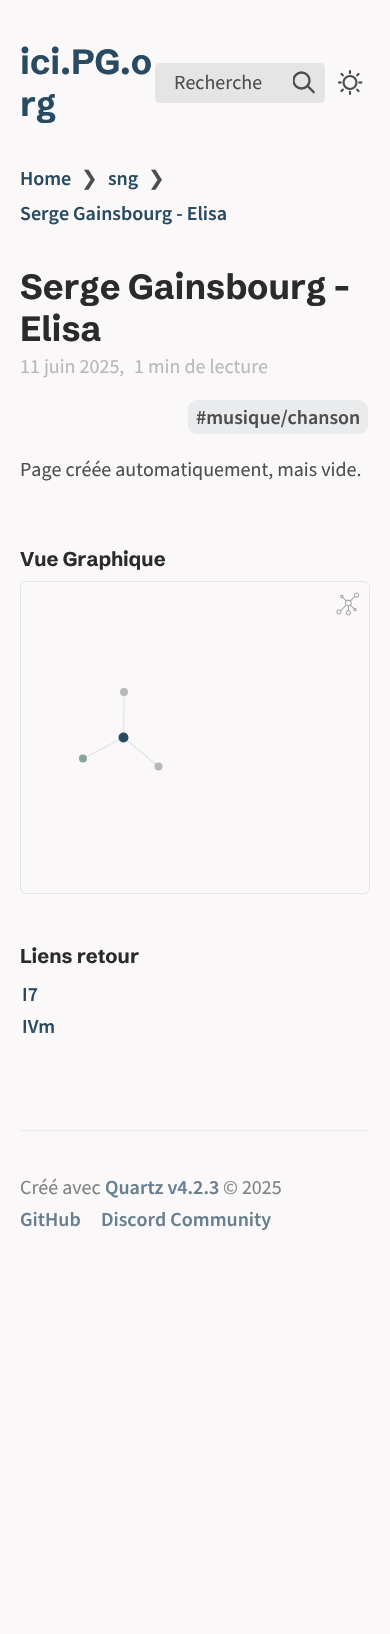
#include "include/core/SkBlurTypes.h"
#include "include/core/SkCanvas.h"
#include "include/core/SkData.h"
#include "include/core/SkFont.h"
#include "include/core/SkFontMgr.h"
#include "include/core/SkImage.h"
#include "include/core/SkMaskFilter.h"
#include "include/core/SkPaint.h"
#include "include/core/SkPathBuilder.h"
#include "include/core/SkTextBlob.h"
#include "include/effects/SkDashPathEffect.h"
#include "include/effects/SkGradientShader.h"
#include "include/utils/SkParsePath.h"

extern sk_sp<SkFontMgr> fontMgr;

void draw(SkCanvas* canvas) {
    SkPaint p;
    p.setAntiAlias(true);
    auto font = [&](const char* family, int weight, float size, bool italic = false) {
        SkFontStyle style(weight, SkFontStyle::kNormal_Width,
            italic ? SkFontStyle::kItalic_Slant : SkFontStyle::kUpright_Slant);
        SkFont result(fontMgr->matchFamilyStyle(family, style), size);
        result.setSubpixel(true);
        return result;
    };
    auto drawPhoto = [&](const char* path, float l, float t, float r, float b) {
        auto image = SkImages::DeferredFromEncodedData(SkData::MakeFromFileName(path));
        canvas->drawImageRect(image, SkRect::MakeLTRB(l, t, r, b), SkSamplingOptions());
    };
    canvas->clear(0xFFFAF8F8);
    auto font1 = font("Schibsted Grotesk", 700, 35);
    p.setColor(0xFF284B63);
    canvas->drawString("ici.PG.o", 20, 74, font1, p);
    canvas->drawString("rg", 20, 116, font1, p);
    p.setColor(0xFFE5E5E5);
    canvas->drawRoundRect(SkRect::MakeLTRB(155, 63, 325, 103), 5, 5, p);
    auto font2 = font("Source Sans Pro", 400, 20);
    p.setColor(0xFF4E4E4E);
    canvas->drawString("Recherche", 174, 89, font2, p);
    p.setStyle(SkPaint::kStroke_Style);
    p.setStrokeWidth(2.3f);
    p.setStrokeCap(SkPaint::kSquare_Cap);
    canvas->drawPath(SkPathBuilder().moveTo(313.5f, 92).lineTo(307.5f, 86).detach(), p);
    canvas->save();
    canvas->clipRect(SkRect::MakeLTRB(293, 71, 315, 94));
    p.setStrokeCap(SkPaint::kButt_Cap);
    canvas->drawCircle(301.5f, 80.5f, 8, p);
    canvas->restore();
    drawPhoto("media/1.png", 338, 70, 363, 95);
    auto font3 = font("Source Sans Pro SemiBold", 600, 20);
    p.setStyle(SkPaint::kFill_Style);
    p.setColor(0xFF284B63);
    canvas->drawString("Home", 20, 185, font3, p);
    auto font4 = font("DejaVu Sans", 400, 20);
    p.setColor(0xFF4E4E4E);
    canvas->drawString("❯", 81, 185, font4, p);
    p.setColor(0xFF284B63);
    canvas->drawString("sng", 108, 185, font3, p);
    p.setColor(0xFF4E4E4E);
    canvas->drawString("❯", 148, 185, font4, p);
    p.setColor(0xFF284B63);
    canvas->drawString("Serge Gainsbourg - Elisa", 20, 220, font3, p);
    p.setColor(0xFF2B2B2B);
    canvas->drawString("Serge Gainsbourg -", 20, 299, font1, p);
    canvas->drawString("Elisa", 20, 341, font1, p);
    p.setColor(0xFFB8B8B8);
    canvas->drawString("11 juin 2025,", 20, 373, font2, p);
    canvas->drawString("1 min de lecture", 134, 373, font2, p);
    p.setColor(0xFFEAEBEC);
    canvas->drawPath(SkPathBuilder().moveTo(197, 400).lineTo(206, 400).lineTo(206, 434).lineTo(197, 434).cubicTo(192, 434, 188, 430, 188, 425).lineTo(188, 409).cubicTo(188, 404, 192, 400, 197, 400).close().detach(), p);
    canvas->drawPath(SkPathBuilder().moveTo(206, 400).lineTo(358, 400).cubicTo(363.5f, 400, 368, 404.5f, 368, 410).lineTo(368, 424).cubicTo(368, 429.5f, 363.5f, 434, 358, 434).lineTo(206, 434).close().detach(), p);
    p.setColor(0xFF4E4E4E);
    canvas->drawString("#musique/chanson", 196, 424, font3, p);
    canvas->drawString("Page créée automatiquement, mais vide.", 20, 476, font2, p);
    auto font5 = font("Schibsted Grotesk", 700, 20);
    p.setColor(0xFF2B2B2B);
    canvas->drawString("Vue Graphique", 20, 566, font5, p);
    p.setStyle(SkPaint::kStroke_Style);
    p.setStrokeWidth(1);
    p.setColor(0xFFE5E5E5);
    canvas->drawRoundRect(SkRect::MakeLTRB(20.5f, 581.5f, 369.5f, 893.5f), 5.5f, 5.5f, p);
    drawPhoto("media/2.png", 336, 592, 359, 616);
    p.setStrokeWidth(1.4f);
    canvas->drawPath(SkPathBuilder().moveTo(123.5f, 737.5f).lineTo(83, 758.5f).detach(), p);
    canvas->drawPath(SkPathBuilder().moveTo(124, 692).lineTo(123.5f, 737.5f).detach(), p);
    p.setStyle(SkPaint::kFill_Style);
    p.setColor(0xFFB8B8B8);
    canvas->drawCircle(124, 692, 4, p);
    p.setStyle(SkPaint::kStroke_Style);
    p.setColor(0xFFE5E5E5);
    canvas->drawPath(SkPathBuilder().moveTo(158.5f, 766.5f).lineTo(123.5f, 737.5f).detach(), p);
    p.setStyle(SkPaint::kFill_Style);
    p.setColor(0xFF284B63);
    canvas->drawCircle(123.5f, 737.5f, 5, p);
    p.setColor(0xFF84A59D);
    canvas->drawCircle(83, 758.5f, 4, p);
    p.setColor(0xFFB8B8B8);
    canvas->drawCircle(158.5f, 766.5f, 4, p);
    p.setColor(0xFF2B2B2B);
    canvas->drawString("Liens retour", 20, 963, font5, p);
    p.setColor(0xFF284B63);
    canvas->drawString("I7", 22, 1001, font3, p);
    canvas->drawString("IVm", 22, 1033, font3, p);
    {
        const SkColor colors[] = {0x00FAF8F8, 0xFFFAF8F8};
        const float stops[] = {0, 1};
        const SkPoint ends[] = {{195, 1028}, {195, 1090}};
        p.setShader(SkGradientShader::MakeLinear(ends, colors, stops, 2, SkTileMode::kClamp));
        p.setAlpha(255);
    }
    canvas->drawRect(SkRect::MakeLTRB(23, 1029, 54, 1033), p);
    p.setShader(nullptr);
    p.setColor(0xFFEBEBEB);
    canvas->drawRect(SkRect::MakeLTRB(20, 1130, 370, 1131), p);
    p.setColor(0xFF828181);
    canvas->drawString("Créé avec", 20, 1194, font2, p);
    p.setColor(0xFF677F90);
    canvas->drawString("Quartz v4.2.3", 105, 1194, font3, p);
    p.setColor(0xFF828181);
    canvas->drawString("© 2025", 223, 1194, font2, p);
    p.setColor(0xFF677F90);
    canvas->drawString("GitHub", 20, 1226, font3, p);
    canvas->drawString("Discord Community", 101, 1226, font3, p);
}
